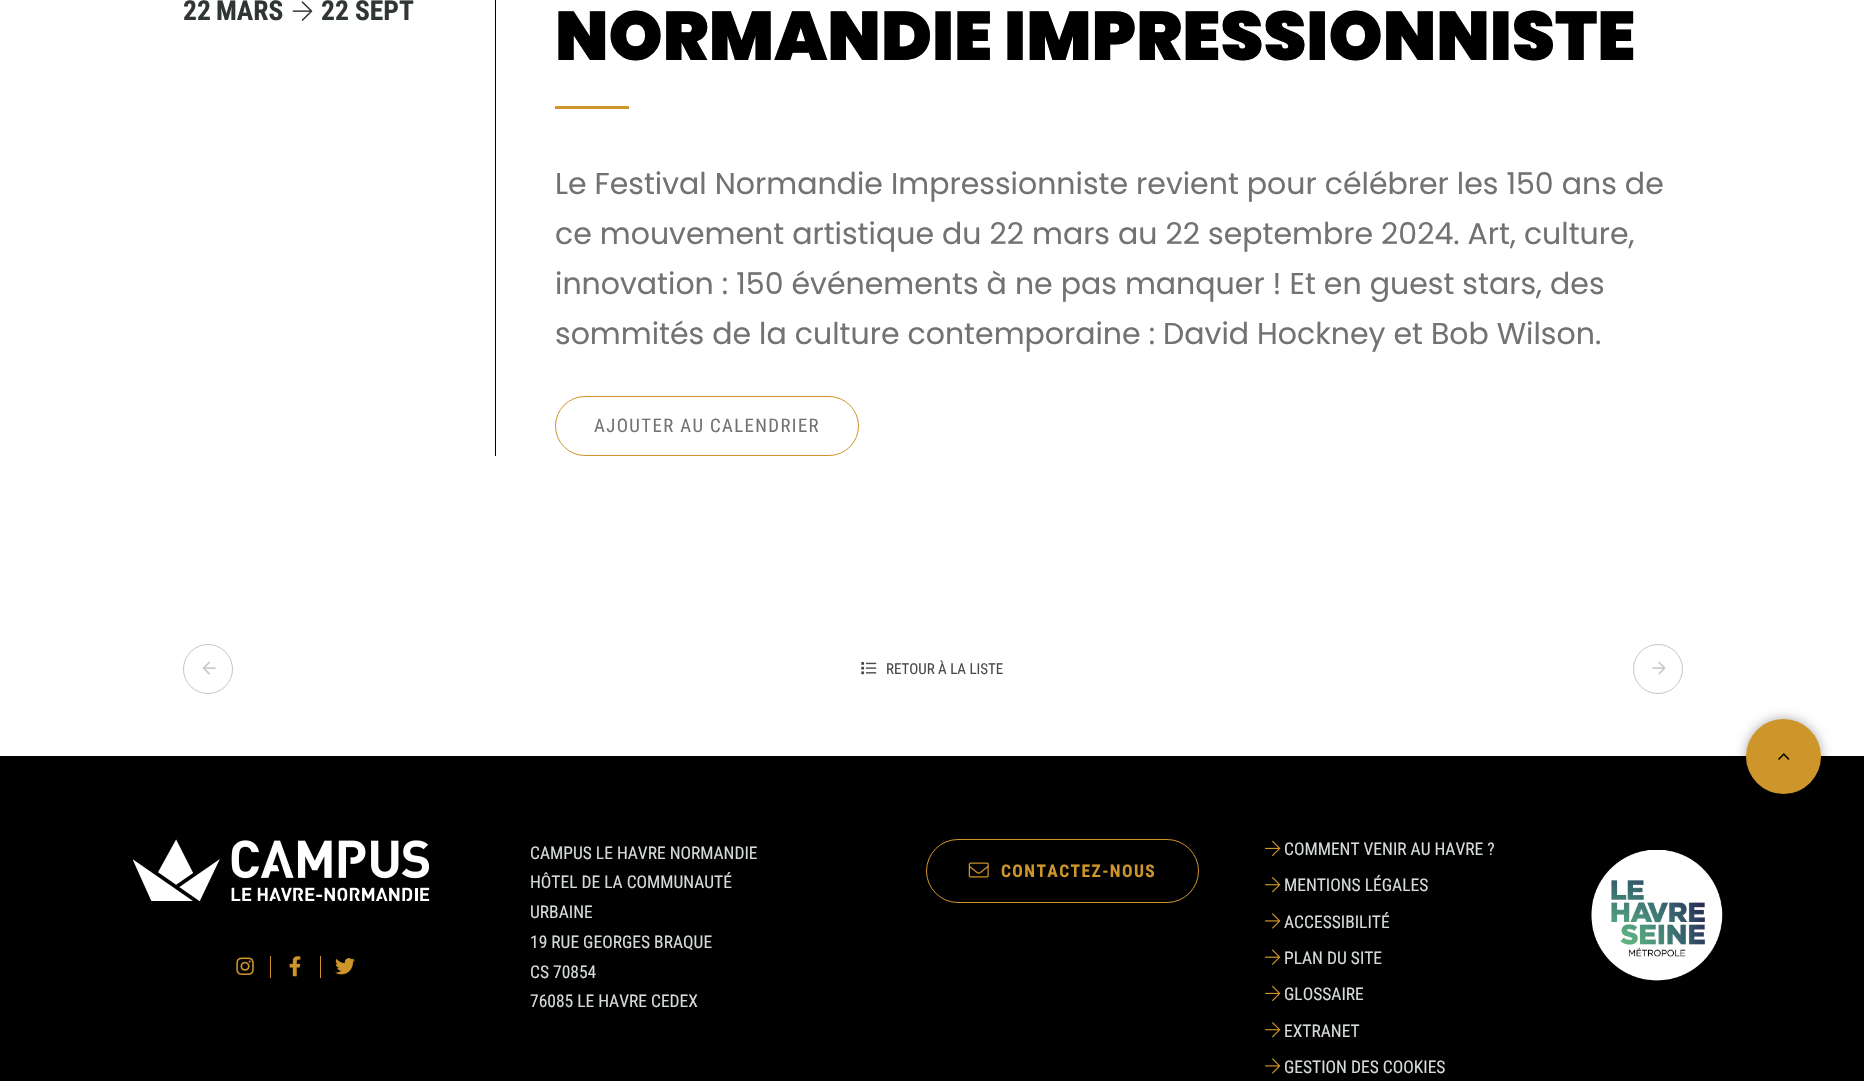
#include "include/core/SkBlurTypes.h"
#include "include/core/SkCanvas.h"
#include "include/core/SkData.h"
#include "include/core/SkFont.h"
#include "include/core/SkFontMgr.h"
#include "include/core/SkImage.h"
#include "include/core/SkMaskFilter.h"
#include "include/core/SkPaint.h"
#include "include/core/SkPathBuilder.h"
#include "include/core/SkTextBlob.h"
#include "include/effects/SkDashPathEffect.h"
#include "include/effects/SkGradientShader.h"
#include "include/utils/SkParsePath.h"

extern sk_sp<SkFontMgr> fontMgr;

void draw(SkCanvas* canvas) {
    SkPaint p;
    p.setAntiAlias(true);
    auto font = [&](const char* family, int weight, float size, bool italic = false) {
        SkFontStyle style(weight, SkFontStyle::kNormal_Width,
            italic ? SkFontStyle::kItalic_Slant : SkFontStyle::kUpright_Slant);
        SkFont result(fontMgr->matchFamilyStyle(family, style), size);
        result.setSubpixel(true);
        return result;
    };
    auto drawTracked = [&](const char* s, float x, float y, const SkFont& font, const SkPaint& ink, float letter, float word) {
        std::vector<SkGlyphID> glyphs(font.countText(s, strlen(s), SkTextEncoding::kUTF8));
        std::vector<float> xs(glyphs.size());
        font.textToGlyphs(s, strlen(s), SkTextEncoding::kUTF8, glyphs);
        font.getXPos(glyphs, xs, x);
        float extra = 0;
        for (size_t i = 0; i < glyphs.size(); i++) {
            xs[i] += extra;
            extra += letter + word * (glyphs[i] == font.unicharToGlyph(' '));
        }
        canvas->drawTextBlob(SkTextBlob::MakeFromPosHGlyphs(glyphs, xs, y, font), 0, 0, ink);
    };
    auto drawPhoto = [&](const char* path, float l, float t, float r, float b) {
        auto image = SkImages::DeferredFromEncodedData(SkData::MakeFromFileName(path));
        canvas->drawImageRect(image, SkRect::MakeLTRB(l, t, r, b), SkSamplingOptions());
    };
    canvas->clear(0xFFFFFFFF);
    p.setColor(0xFF000000);
    canvas->drawRect(SkRect::MakeLTRB(495, 0, 496, 456), p);
    auto font1 = font("Roboto Condensed", 700, 27.5f);
    p.setColor(0xFF2F3634);
    canvas->drawString("22", 183, 20, font1, p);
    canvas->drawString("MARS", 216, 20, font1, p);
    drawPhoto("media/1.png", 292, 1, 313, 21);
    canvas->drawString("22", 321, 20, font1, p);
    canvas->drawString("SEPT", 355, 20, font1, p);
    auto font2 = font("Poppins", 900, 68.75f);
    p.setColor(0xFF000000);
    canvas->drawString("NORMANDIE IMPRESSIONNISTE", 555, 60, font2, p);
    p.setColor(0xFFCD952A);
    canvas->drawRect(SkRect::MakeLTRB(555, 106, 629, 109), p);
    auto font3 = font("Poppins", 400, 30);
    p.setColor(0xFF727272);
    {
        const struct { const char* s; float x, y; } items[] = {
            {"Le Festival Normandie Impressionniste revient pour célébrer les 150 ans de", 555, 194},
            {"ce mouvement artistique du 22 mars au 22 septembre 2024. Art, culture,", 555, 244},
            {"innovation : 150 événements à ne pas manquer ! Et en guest stars, des", 555, 294},
            {"sommités de la culture contemporaine : David Hockney et Bob Wilson.", 555, 344},
        };
        for (auto [s, x, y] : items) {
            canvas->drawString(s, x, y, font3, p);
        }
    }
    p.setStyle(SkPaint::kStroke_Style);
    p.setStrokeWidth(1);
    p.setColor(0xFFCD952A);
    canvas->drawRoundRect(SkRect::MakeLTRB(555.5f, 396.5f, 858.5f, 455.5f), 29.5f, 29.5f, p);
    auto font4 = font("Roboto Condensed", 400, 18.75f);
    p.setStyle(SkPaint::kFill_Style);
    p.setColor(0xFF727272);
    drawTracked("AJOUTER AU CALENDRIER", 594, 432, font4, p, 1.4f, 0);
    p.setStyle(SkPaint::kStroke_Style);
    p.setColor(0xFFC5C5C5);
    canvas->drawCircle(208, 669, 24.5f, p);
    drawPhoto("media/2.png", 202, 661, 216, 675);
    drawPhoto("media/3.png", 861, 662, 877, 675);
    auto font5 = font("Roboto Condensed", 400, 15);
    p.setStyle(SkPaint::kFill_Style);
    p.setColor(0xFF494949);
    canvas->drawString("RETOUR À LA LISTE", 886, 674, font5, p);
    p.setStyle(SkPaint::kStroke_Style);
    p.setColor(0xFFC5C5C5);
    canvas->drawCircle(1658, 669, 24.5f, p);
    drawPhoto("media/4.png", 1652, 661, 1666, 675);
    p.setStyle(SkPaint::kFill_Style);
    p.setColor(0xFF000000);
    canvas->drawRect(SkRect::MakeLTRB(0, 756, 1864, 1081), p);
    p.setColor(0x57000000);
    p.setMaskFilter(SkMaskFilter::MakeBlur(kNormal_SkBlurStyle, 6));
    canvas->drawRoundRect(SkRect::MakeLTRB(1746, 719, 1821, 794), 37.5f, 37.5f, p);
    p.setMaskFilter(nullptr);
    p.setColor(0xFFCD952A);
    canvas->drawCircle(1783.5f, 756.5f, 37.5f, p);
    drawPhoto("media/5.png", 1778, 753, 1790, 760);
    drawPhoto("media/6.png", 133, 839, 430, 901);
    drawPhoto("media/7.png", 236, 957, 254, 975);
    canvas->drawRect(SkRect::MakeLTRB(270, 956, 271, 978), p);
    drawPhoto("media/8.png", 289, 956, 301, 977);
    canvas->drawRect(SkRect::MakeLTRB(320, 956, 321, 978), p);
    drawPhoto("media/9.png", 335, 958, 355, 975);
    auto font6 = font("Roboto Condensed", 400, 17.5f);
    p.setColor(0xFFD5DBD9);
    {
        const struct { const char* s; float x, y; } items[] = {
            {"CAMPUS LE HAVRE NORMANDIE", 530, 859},
            {"HÔTEL DE LA COMMUNAUTÉ", 530, 888},
            {"URBAINE", 530, 918},
            {"19 RUE GEORGES BRAQUE", 530, 948},
            {"CS 70854", 530, 978},
            {"76085 LE HAVRE CEDEX", 530, 1007},
        };
        for (auto [s, x, y] : items) {
            canvas->drawString(s, x, y, font6, p);
        }
    }
    p.setStyle(SkPaint::kStroke_Style);
    p.setColor(0xFFCD952A);
    canvas->drawRoundRect(SkRect::MakeLTRB(926.5f, 839.5f, 1198.5f, 902.5f), 31.5f, 31.5f, p);
    drawPhoto("media/10.png", 968, 862, 989, 878);
    auto font7 = font("Roboto Condensed", 700, 17.5f);
    p.setStyle(SkPaint::kFill_Style);
    drawTracked("CONTACTEZ-NOUS", 1001, 877, font7, p, 1.4f, 0);
    drawPhoto("media/11.png", 1265, 840, 1281, 856);
    p.setColor(0xFFD5DBD9);
    canvas->drawString("COMMENT VENIR AU HAVRE ?", 1284, 855, font6, p);
    drawPhoto("media/12.png", 1265, 877, 1281, 893);
    canvas->drawString("MENTIONS LÉGALES", 1284, 891, font6, p);
    drawPhoto("media/13.png", 1265, 913, 1281, 929);
    canvas->drawString("ACCESSIBILITÉ", 1284, 928, font6, p);
    drawPhoto("media/14.png", 1265, 949, 1281, 965);
    canvas->drawString("PLAN DU SITE", 1284, 964, font6, p);
    drawPhoto("media/11.png", 1265, 985, 1281, 1001);
    canvas->drawString("GLOSSAIRE", 1284, 1000, font6, p);
    drawPhoto("media/12.png", 1265, 1022, 1281, 1038);
    canvas->drawString("EXTRANET", 1284, 1037, font6, p);
    drawPhoto("media/13.png", 1265, 1058, 1281, 1074);
    canvas->drawString("GESTION DES COOKIES", 1284, 1073, font6, p);
    drawPhoto("media/15.png", 1591, 850, 1723, 981);
}
